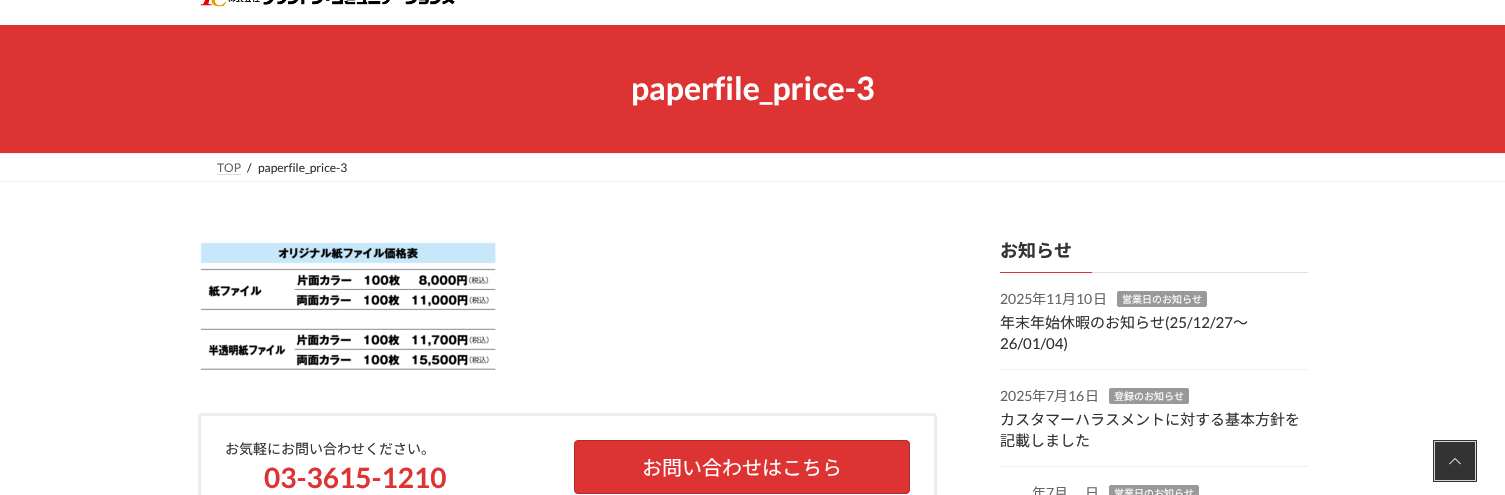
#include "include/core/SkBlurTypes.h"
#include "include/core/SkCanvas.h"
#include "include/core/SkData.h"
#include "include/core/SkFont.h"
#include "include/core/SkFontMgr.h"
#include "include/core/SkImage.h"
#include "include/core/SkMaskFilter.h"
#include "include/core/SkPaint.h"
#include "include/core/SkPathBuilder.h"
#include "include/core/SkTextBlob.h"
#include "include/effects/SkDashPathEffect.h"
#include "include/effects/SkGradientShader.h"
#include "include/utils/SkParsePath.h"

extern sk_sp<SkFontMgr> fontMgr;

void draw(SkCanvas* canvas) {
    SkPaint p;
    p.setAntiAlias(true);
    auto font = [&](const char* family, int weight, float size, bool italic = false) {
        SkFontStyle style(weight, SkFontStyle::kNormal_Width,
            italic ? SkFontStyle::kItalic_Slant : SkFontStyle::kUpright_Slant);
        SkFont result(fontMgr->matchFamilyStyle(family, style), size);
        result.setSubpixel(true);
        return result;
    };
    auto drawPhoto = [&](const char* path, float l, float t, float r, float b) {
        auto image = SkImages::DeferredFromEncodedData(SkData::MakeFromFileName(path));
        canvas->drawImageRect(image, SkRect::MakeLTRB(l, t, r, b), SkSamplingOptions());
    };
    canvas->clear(0xFFFFFFFF);
    drawPhoto("media/1.png", 200, 0, 455, 7);
    p.setColor(0xFFDD3333);
    canvas->drawRect(SkRect::MakeLTRB(0, 25, 1505, 153), p);
    auto font1 = font("Lato", 700, 32);
    p.setColor(0xFFFFFFFF);
    canvas->drawString("paperfile_price-3", 631, 100, font1, p);
    p.setColor(0xFFF0F0F0);
    canvas->drawRect(SkRect::MakeLTRB(0, 153, 1505, 154), p);
    canvas->drawRect(SkRect::MakeLTRB(0, 181, 1505, 182), p);
    auto font2 = font("Lato", 400, 12);
    p.setColor(0xFF666666);
    canvas->drawString("TOP", 217, 172, font2, p);
    p.setStyle(SkPaint::kStroke_Style);
    p.setStrokeWidth(1);
    p.setColor(0xFFB3B3B3);
    p.setPathEffect(SkDashPathEffect::Make({{1, 1}}, 0));
    canvas->drawPath(SkPathBuilder().moveTo(217.5f, 174.5f).lineTo(241.5f, 174.5f).detach(), p);
    p.setPathEffect(nullptr);
    p.setStyle(SkPaint::kFill_Style);
    p.setColor(0xFF333333);
    canvas->drawString("/", 247, 172, font2, p);
    canvas->drawString("paperfile_price-3", 258, 172, font2, p);
    drawPhoto("media/2.png", 200, 242, 496, 370);
    p.setStyle(SkPaint::kStroke_Style);
    p.setStrokeWidth(3);
    p.setColor(0xFFEDEDED);
    canvas->drawRoundRect(SkRect::MakeLTRB(199.5f, 414.5f, 935.5f, 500.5f), 2.5f, 2.5f, p);
    auto font3 = font("Noto Sans JP", 400, 14);
    p.setStyle(SkPaint::kFill_Style);
    p.setColor(0xFF333333);
    canvas->drawString("お気軽にお問い合わせください。", 225, 454, font3, p);
    auto font4 = font("Lato", 700, 28);
    p.setColor(0xFFDD3333);
    canvas->drawString("03-3615-1210", 264, 488, font4, p);
    canvas->drawRoundRect(SkRect::MakeLTRB(574.5f, 440.5f, 909.5f, 493.5f), 3.5f, 3.5f, p);
    p.setStyle(SkPaint::kStroke_Style);
    p.setStrokeWidth(1);
    p.setColor(0xFFB12929);
    canvas->drawRoundRect(SkRect::MakeLTRB(574.5f, 440.5f, 909.5f, 493.5f), 3.5f, 3.5f, p);
    auto font5 = font("Noto Sans JP", 400, 20);
    p.setStyle(SkPaint::kFill_Style);
    p.setColor(0xFFFFFFFF);
    canvas->drawString("お問い合わせはこちら", 642, 475, font5, p);
    p.setColor(0xFFE0E0E0);
    canvas->drawRect(SkRect::MakeLTRB(1092, 272, 1308, 273), p);
    auto font6 = font("Noto Sans JP", 700, 18);
    p.setColor(0xFF333333);
    canvas->drawString("お知らせ", 1000, 257, font6, p);
    p.setColor(0xFFDD3333);
    canvas->drawRect(SkRect::MakeLTRB(1000, 272, 1092, 273), p);
    p.setColor(0xFFF0F0F0);
    canvas->drawRect(SkRect::MakeLTRB(1000, 369, 1308, 370), p);
    auto font7 = font("Lato", 400, 14);
    p.setColor(0xFF666666);
    canvas->drawString("2025", 1000, 304, font7, p);
    canvas->drawString("年", 1032, 304, font3, p);
    canvas->drawString("11", 1046, 304, font7, p);
    canvas->drawString("月", 1062, 304, font3, p);
    canvas->drawString("10", 1076, 304, font7, p);
    canvas->drawString("日", 1093, 304, font3, p);
    p.setColor(0xFF999999);
    canvas->drawRoundRect(SkRect::MakeLTRB(1117, 291, 1207, 307), 2, 2, p);
    auto font8 = font("Noto Sans JP", 400, 10);
    p.setColor(0xFFFFFFFF);
    canvas->drawString("営業日のお知らせ", 1122, 303, font8, p);
    auto font9 = font("Noto Sans JP", 400, 15);
    p.setColor(0xFF333333);
    canvas->drawString("年末年始休暇のお知らせ", 1000, 328, font9, p);
    auto font10 = font("Lato", 400, 15);
    canvas->drawString("(25/12/27", 1165, 328, font10, p);
    canvas->drawString("～", 1233, 328, font9, p);
    canvas->drawString("26/01/04)", 1000, 349, font10, p);
    p.setColor(0xFFF0F0F0);
    canvas->drawRect(SkRect::MakeLTRB(1000, 466, 1308, 467), p);
    p.setColor(0xFF666666);
    canvas->drawString("2025", 1000, 401, font7, p);
    canvas->drawString("年", 1032, 401, font3, p);
    canvas->drawString("7", 1046, 401, font7, p);
    canvas->drawString("月", 1054, 401, font3, p);
    canvas->drawString("16", 1068, 401, font7, p);
    canvas->drawString("日", 1085, 401, font3, p);
    p.setColor(0xFF999999);
    canvas->drawRoundRect(SkRect::MakeLTRB(1109, 388, 1189, 404), 2, 2, p);
    p.setColor(0xFFFFFFFF);
    canvas->drawString("登録のお知らせ", 1114, 400, font8, p);
    p.setColor(0xFF333333);
    canvas->drawString("カスタマーハラスメントに対する基本方針を", 1000, 425, font9, p);
    canvas->drawString("記載しました", 1000, 446, font9, p);
    p.setColor(0xFF666666);
    canvas->drawString("年", 1032, 498, font3, p);
    canvas->drawString("7", 1046, 498, font7, p);
    canvas->drawString("月", 1054, 498, font3, p);
    canvas->drawString("日", 1085, 498, font3, p);
    p.setColor(0xFF999999);
    canvas->drawRoundRect(SkRect::MakeLTRB(1109, 485, 1199, 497), 2, 2, p);
    p.setColor(0xFFFFFFFF);
    canvas->drawString("営業日のお知らせ", 1114, 497, font8, p);
    p.setStyle(SkPaint::kStroke_Style);
    p.setStrokeWidth(2);
    p.setColor(0xFF333333);
    canvas->drawRect(SkRect::MakeLTRB(1434, 441, 1476, 481), p);
    p.setStrokeWidth(1);
    p.setColor(0xFFD6D6D6);
    canvas->drawRect(SkRect::MakeLTRB(1434.5f, 441.5f, 1475.5f, 480.5f), p);
    p.setStyle(SkPaint::kFill_Style);
    p.setColor(0xFF333333);
    canvas->drawRect(SkRect::MakeLTRB(1435, 442, 1475, 480), p);
    drawPhoto("media/3.png", 1449, 458, 1461, 465);
}
